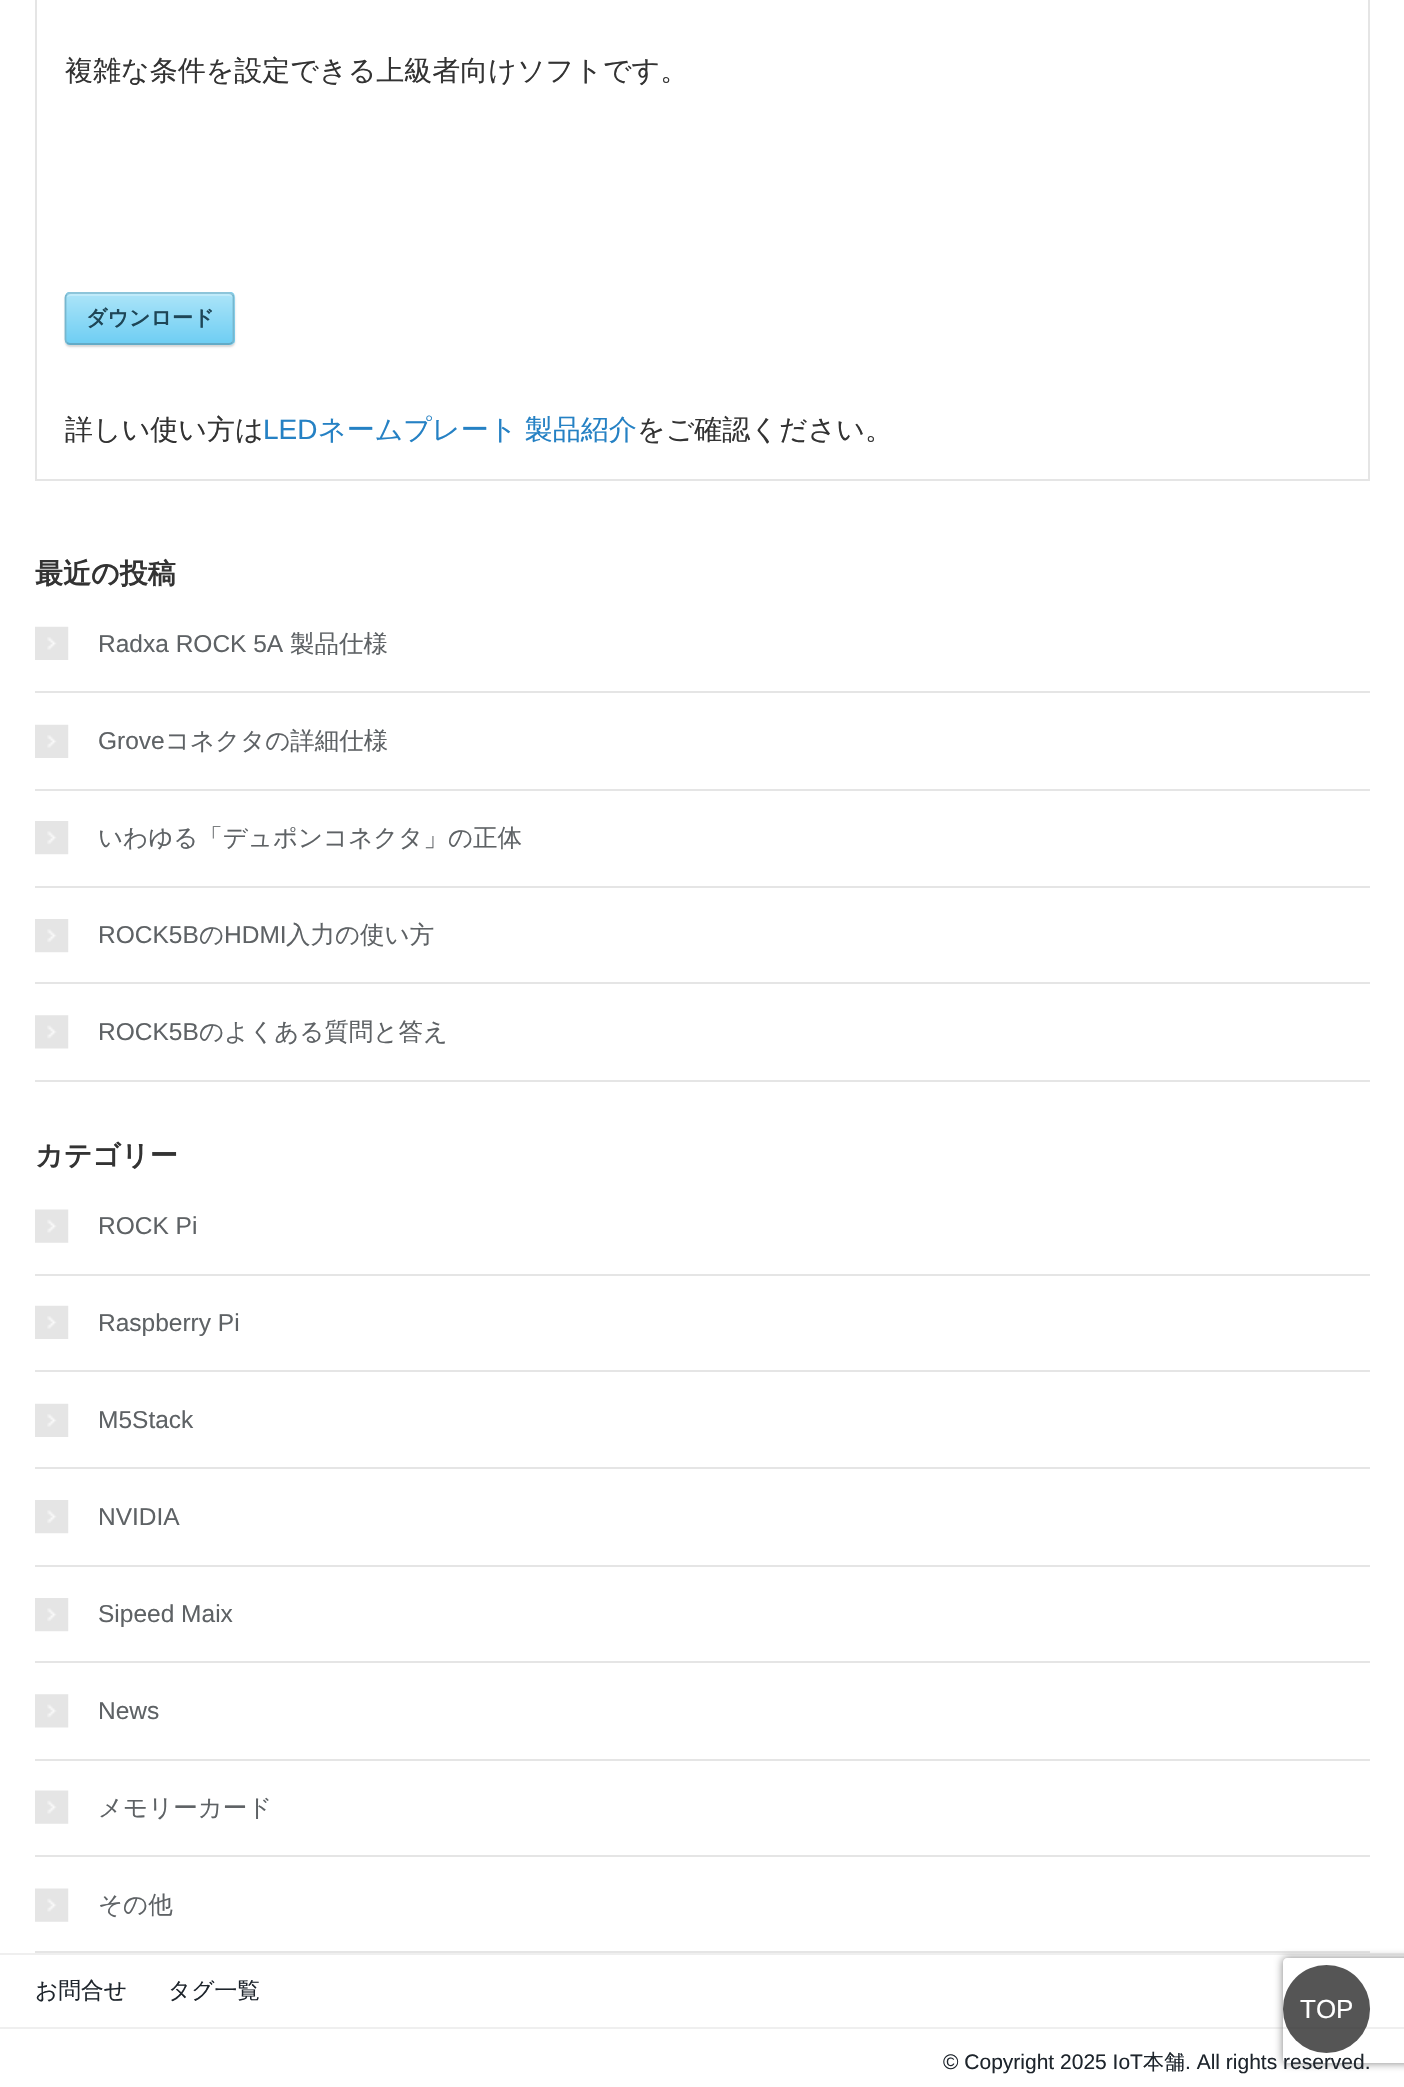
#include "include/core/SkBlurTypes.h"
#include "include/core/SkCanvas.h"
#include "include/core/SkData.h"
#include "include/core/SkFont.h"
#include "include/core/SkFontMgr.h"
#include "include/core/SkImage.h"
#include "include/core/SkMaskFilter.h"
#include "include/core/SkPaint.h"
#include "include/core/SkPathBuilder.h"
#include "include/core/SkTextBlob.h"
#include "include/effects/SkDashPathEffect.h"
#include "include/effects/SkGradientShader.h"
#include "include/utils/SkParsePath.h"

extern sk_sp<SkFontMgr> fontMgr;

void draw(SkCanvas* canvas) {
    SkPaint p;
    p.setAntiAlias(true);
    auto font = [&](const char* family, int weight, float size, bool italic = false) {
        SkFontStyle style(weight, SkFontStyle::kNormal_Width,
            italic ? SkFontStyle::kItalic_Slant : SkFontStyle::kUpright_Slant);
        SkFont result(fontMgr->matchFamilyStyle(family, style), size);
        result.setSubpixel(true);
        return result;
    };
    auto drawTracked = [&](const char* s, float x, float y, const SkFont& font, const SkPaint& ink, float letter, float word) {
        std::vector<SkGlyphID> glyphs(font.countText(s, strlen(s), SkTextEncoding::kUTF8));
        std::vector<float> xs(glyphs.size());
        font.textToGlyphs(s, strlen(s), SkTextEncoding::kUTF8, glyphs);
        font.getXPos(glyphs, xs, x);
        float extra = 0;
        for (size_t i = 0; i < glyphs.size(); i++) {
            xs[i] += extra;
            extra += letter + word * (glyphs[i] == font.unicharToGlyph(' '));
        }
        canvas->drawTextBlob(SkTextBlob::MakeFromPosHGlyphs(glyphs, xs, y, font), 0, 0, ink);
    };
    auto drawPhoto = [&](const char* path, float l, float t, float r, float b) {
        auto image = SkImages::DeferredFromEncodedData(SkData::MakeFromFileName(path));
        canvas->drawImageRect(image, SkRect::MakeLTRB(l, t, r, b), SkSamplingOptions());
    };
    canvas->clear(0xFFFFFFFF);
    p.setStyle(SkPaint::kStroke_Style);
    p.setStrokeWidth(2);
    p.setColor(0xFFE5E5E5);
    canvas->drawRect(SkRect::MakeLTRB(36, -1, 1369, 480), p);
    auto font1 = font("WenQuanYi Zen Hei", 500, 28);
    p.setStyle(SkPaint::kFill_Style);
    p.setColor(0xFF333333);
    canvas->drawString("複雑な条件を設定できる上級者向けソフトです。", 65, 80, font1, p);
    p.setColor(0xFFD6D6D6);
    p.setMaskFilter(SkMaskFilter::MakeBlur(kNormal_SkBlurStyle, 1));
    canvas->drawRoundRect(SkRect::MakeLTRB(65, 294, 235, 347), 5, 5, p);
    p.setMaskFilter(nullptr);
    canvas->save();
    canvas->clipPath(SkPathBuilder().moveTo(70, 292).lineTo(230, 292).cubicTo(233, 292, 235, 294, 235, 297).lineTo(235, 340).cubicTo(235, 343, 233, 345, 230, 345).lineTo(70, 345).cubicTo(67, 345, 65, 343, 65, 340).lineTo(65, 297).cubicTo(65, 294, 67, 292, 70, 292).close().detach(), true);
    {
        const SkColor colors[] = {0xFFABE4F8, 0xFF6FCEF3};
        const float stops[] = {0, 1};
        const SkPoint ends[] = {{67, 245}, {67, 294}};
        p.setShader(SkGradientShader::MakeLinear(ends, colors, stops, 2, SkTileMode::kClamp));
        p.setAlpha(255);
    }
    canvas->drawRect(SkRect::MakeLTRB(65, 292, 235, 294), p);
    {
        const SkColor colors[] = {0xFFABE4F8, 0xFF6FCEF3};
        const float stops[] = {0, 1};
        const SkPoint ends[] = {{67, 294}, {67, 343}};
        p.setShader(SkGradientShader::MakeLinear(ends, colors, stops, 2, SkTileMode::kClamp));
        p.setAlpha(255);
    }
    canvas->drawRect(SkRect::MakeLTRB(65, 294, 235, 343), p);
    {
        const SkColor colors[] = {0xFFABE4F8, 0xFF6FCEF3};
        const float stops[] = {0, 1};
        const SkPoint ends[] = {{67, 343}, {67, 392}};
        p.setShader(SkGradientShader::MakeLinear(ends, colors, stops, 2, SkTileMode::kClamp));
        p.setAlpha(255);
    }
    canvas->drawRect(SkRect::MakeLTRB(65, 343, 235, 345), p);
    canvas->restore();
    p.setShader(nullptr);
    p.setColor(0xFFC0EBFA);
    canvas->drawPath(SkPathBuilder().moveTo(70, 296).lineTo(229, 296).cubicTo(231, 296, 233, 297, 233, 299).lineTo(233, 298).cubicTo(233, 296, 231, 294, 229, 294).lineTo(71, 294).cubicTo(69, 294, 68, 295, 67, 297).close().detach(), p);
    p.setStyle(SkPaint::kStroke_Style);
    p.setStrokeWidth(1.8f);
    p.setColor(0xFF8DC5DA);
    canvas->drawPath(SkPathBuilder().moveTo(67, 294.5f).cubicTo(67.5f, 293.5f, 69, 293, 70, 293).lineTo(229, 293).cubicTo(230.5f, 293, 231.5f, 293.5f, 232.5f, 294.5f).detach(), p);
    p.setColor(0xFF76B7CF);
    canvas->drawPath(SkPathBuilder().moveTo(232.5f, 294.5f).cubicTo(233, 295, 233.5f, 296.5f, 233.5f, 297.5f).lineTo(233.5f, 339.5f).cubicTo(233.5f, 340.5f, 233, 342, 232.5f, 342.5f).detach(), p);
    p.setColor(0xFF63ABC7);
    canvas->drawPath(SkPathBuilder().moveTo(232.5f, 342.5f).cubicTo(231.5f, 343.5f, 230.5f, 344, 229, 344).lineTo(70, 344).cubicTo(69, 344, 67.5f, 343.5f, 67, 342.5f).detach(), p);
    p.setColor(0xFF76B7CF);
    canvas->drawPath(SkPathBuilder().moveTo(67, 342.5f).cubicTo(66, 342, 65.5f, 340.5f, 65.5f, 339.5f).lineTo(65.5f, 297.5f).cubicTo(65.5f, 296.5f, 66, 295, 67, 294.5f).detach(), p);
    auto font2 = font("WenQuanYi Zen Hei", 700, 21);
    p.setStyle(SkPaint::kFill_Style);
    p.setColor(0xFF1E4657);
    canvas->drawString("ダウンロード", 86, 325, font2, p);
    p.setColor(0xFF333333);
    canvas->drawString("詳しい使い方は", 65, 439, font1, p);
    auto font3 = font("Liberation Sans", 400, 28);
    p.setColor(0xFF2581C4);
    canvas->drawString("LED", 263, 439, font3, p);
    drawTracked("ネームプレート 製品紹介", 318, 439, font1, p, 0, -1);
    p.setColor(0xFF333333);
    canvas->drawString("をご確認ください。", 637, 439, font1, p);
    auto font4 = font("WenQuanYi Zen Hei", 700, 28);
    canvas->drawString("最近の投稿", 35, 583, font4, p);
    p.setColor(0xFFE5E5E5);
    canvas->drawRect(SkRect::MakeLTRB(35, 691, 1370, 693), p);
    drawPhoto("media/1.png", 35, 626, 69, 660);
    auto font5 = font("Liberation Sans", 400, 24.5f);
    p.setColor(0xFF5E6265);
    canvas->drawString("Radxa ROCK 5A", 98, 652, font5, p);
    auto font6 = font("WenQuanYi Zen Hei", 500, 24.5f);
    canvas->drawString("製品仕様", 290, 652, font6, p);
    p.setColor(0xFFE5E5E5);
    canvas->drawRect(SkRect::MakeLTRB(35, 789, 1370, 791), p);
    drawPhoto("media/1.png", 35, 724, 69, 758);
    p.setColor(0xFF5E6265);
    canvas->drawString("Grove", 98, 749, font5, p);
    canvas->drawString("コネクタの詳細仕様", 165, 749, font6, p);
    p.setColor(0xFFE5E5E5);
    canvas->drawRect(SkRect::MakeLTRB(35, 886, 1370, 888), p);
    drawPhoto("media/2.png", 35, 821, 69, 855);
    p.setColor(0xFF5E6265);
    canvas->drawString("いわゆる「デュポンコネクタ」の正体", 98, 846, font6, p);
    p.setColor(0xFFE5E5E5);
    canvas->drawRect(SkRect::MakeLTRB(35, 982, 1370, 984), p);
    drawPhoto("media/2.png", 35, 919, 69, 953);
    p.setColor(0xFF5E6265);
    canvas->drawString("ROCK5B", 98, 943, font5, p);
    canvas->drawString("の", 199, 943, font6, p);
    canvas->drawString("HDMI", 224, 943, font5, p);
    canvas->drawString("入力の使い方", 286, 943, font6, p);
    p.setColor(0xFFE5E5E5);
    canvas->drawRect(SkRect::MakeLTRB(35, 1080, 1370, 1082), p);
    drawPhoto("media/3.png", 35, 1015, 69, 1049);
    p.setColor(0xFF5E6265);
    canvas->drawString("ROCK5B", 98, 1040, font5, p);
    canvas->drawString("のよくある質問と答え", 199, 1040, font6, p);
    p.setColor(0xFF333333);
    canvas->drawString("カテゴリー", 35, 1165, font4, p);
    p.setColor(0xFFE5E5E5);
    canvas->drawRect(SkRect::MakeLTRB(35, 1274, 1370, 1276), p);
    drawPhoto("media/4.png", 35, 1209, 69, 1243);
    p.setColor(0xFF5E6265);
    canvas->drawString("ROCK Pi", 98, 1234, font5, p);
    p.setColor(0xFFE5E5E5);
    canvas->drawRect(SkRect::MakeLTRB(35, 1370, 1370, 1372), p);
    drawPhoto("media/1.png", 35, 1305, 69, 1339);
    p.setColor(0xFF5E6265);
    canvas->drawString("Raspberry Pi", 98, 1331, font5, p);
    p.setColor(0xFFE5E5E5);
    canvas->drawRect(SkRect::MakeLTRB(35, 1467, 1370, 1469), p);
    drawPhoto("media/1.png", 35, 1403, 69, 1437);
    p.setColor(0xFF5E6265);
    canvas->drawString("M5Stack", 98, 1428, font5, p);
    p.setColor(0xFFE5E5E5);
    canvas->drawRect(SkRect::MakeLTRB(35, 1565, 1370, 1567), p);
    drawPhoto("media/2.png", 35, 1500, 69, 1534);
    p.setColor(0xFF5E6265);
    canvas->drawString("NVIDIA", 98, 1525, font5, p);
    p.setColor(0xFFE5E5E5);
    canvas->drawRect(SkRect::MakeLTRB(35, 1661, 1370, 1663), p);
    drawPhoto("media/2.png", 35, 1598, 69, 1632);
    p.setColor(0xFF5E6265);
    canvas->drawString("Sipeed Maix", 98, 1622, font5, p);
    p.setColor(0xFFE5E5E5);
    canvas->drawRect(SkRect::MakeLTRB(35, 1759, 1370, 1761), p);
    drawPhoto("media/5.png", 35, 1694, 69, 1728);
    p.setColor(0xFF5E6265);
    canvas->drawString("News", 98, 1719, font5, p);
    p.setColor(0xFFE5E5E5);
    canvas->drawRect(SkRect::MakeLTRB(35, 1855, 1370, 1857), p);
    drawPhoto("media/4.png", 35, 1790, 69, 1824);
    p.setColor(0xFF5E6265);
    canvas->drawString("メモリーカード", 98, 1816, font6, p);
    p.setColor(0xFFE5E5E5);
    canvas->drawRect(SkRect::MakeLTRB(35, 1951, 1370, 1953), p);
    drawPhoto("media/4.png", 35, 1888, 69, 1922);
    p.setColor(0xFF5E6265);
    canvas->drawString("その他", 98, 1913, font6, p);
    p.setColor(0xFFEFEFEF);
    canvas->drawRect(SkRect::MakeLTRB(0, 1953, 1404, 1955), p);
    canvas->drawRect(SkRect::MakeLTRB(0, 2027, 1404, 2029), p);
    p.setColor(0xCC2B2B2B);
    canvas->drawRoundRect(SkRect::MakeLTRB(1283, 1965, 1370, 2053), 43.5f, 43.5f, p);
    canvas->save();
    canvas->clipPath(SkPathBuilder(SkPathFillType::kEvenOdd).moveTo(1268, 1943).lineTo(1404, 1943).lineTo(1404, 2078).lineTo(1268, 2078).close().moveTo(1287, 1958).lineTo(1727, 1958).cubicTo(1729, 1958, 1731, 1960, 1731, 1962).lineTo(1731, 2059).cubicTo(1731, 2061, 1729, 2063, 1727, 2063).lineTo(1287, 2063).cubicTo(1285, 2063, 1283, 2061, 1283, 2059).lineTo(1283, 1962).cubicTo(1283, 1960, 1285, 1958, 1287, 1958).close().detach(), true);
    p.setColor(0xFF808080);
    p.setMaskFilter(SkMaskFilter::MakeBlur(kNormal_SkBlurStyle, 4.5f));
    canvas->drawRoundRect(SkRect::MakeLTRB(1283, 1958, 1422, 2063), 4, 4, p);
    p.setMaskFilter(nullptr);
    canvas->restore();
    auto font7 = font("WenQuanYi Zen Hei", 500, 22.75f);
    p.setColor(0xFF1E252C);
    canvas->drawString("お問合せ", 35, 1998, font7, p);
    canvas->drawString("タグ一覧", 168, 1998, font7, p);
    auto font8 = font("Liberation Sans", 400, 21);
    canvas->drawString("© Copyright 2025 IoT", 943, 2069, font8, p);
    auto font9 = font("WenQuanYi Zen Hei", 500, 21);
    canvas->drawString("本舗", 1143, 2069, font9, p);
    canvas->drawString(". All rights reserved.", 1185, 2069, font8, p);
    auto font10 = font("Liberation Sans", 400, 26);
    p.setColor(0xFFFFFFFF);
    canvas->drawString("TOP", 1300, 2018, font10, p);
}
